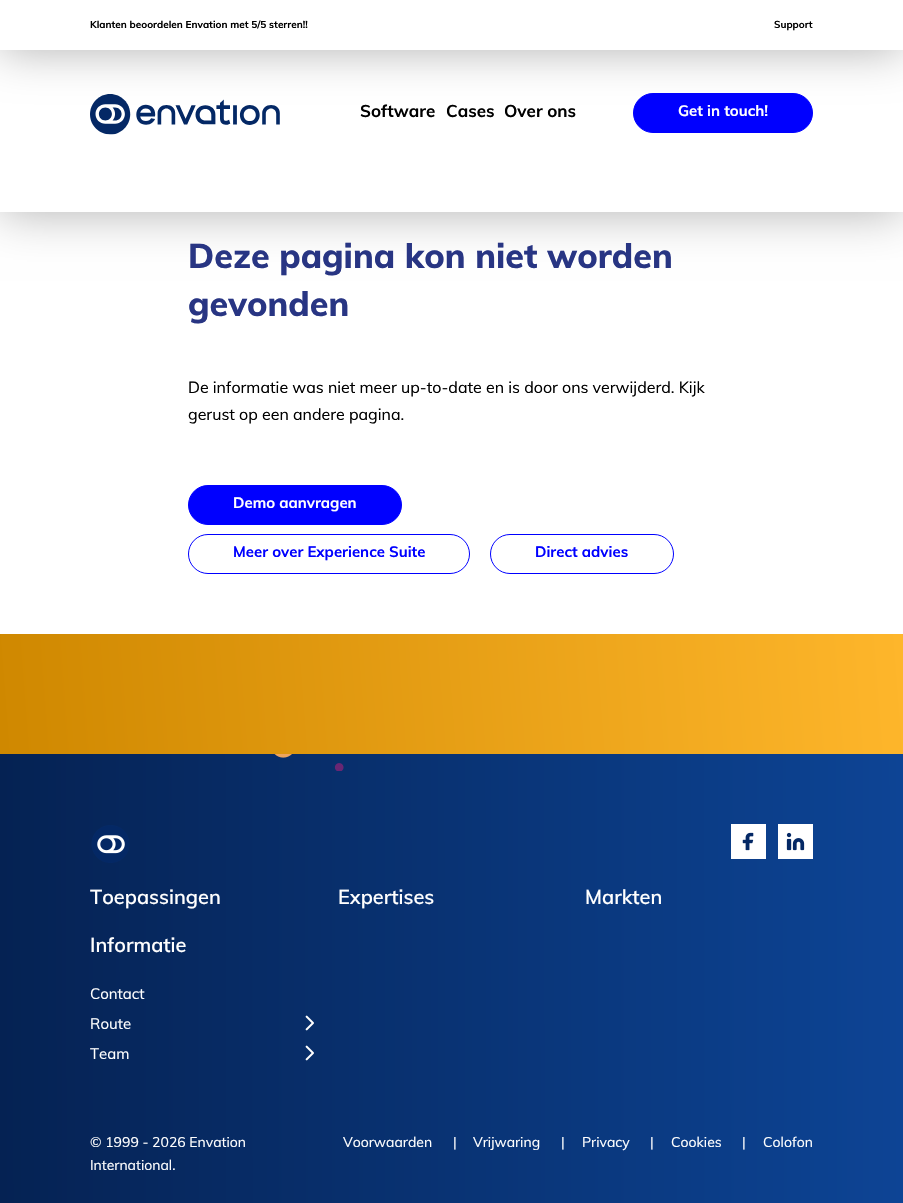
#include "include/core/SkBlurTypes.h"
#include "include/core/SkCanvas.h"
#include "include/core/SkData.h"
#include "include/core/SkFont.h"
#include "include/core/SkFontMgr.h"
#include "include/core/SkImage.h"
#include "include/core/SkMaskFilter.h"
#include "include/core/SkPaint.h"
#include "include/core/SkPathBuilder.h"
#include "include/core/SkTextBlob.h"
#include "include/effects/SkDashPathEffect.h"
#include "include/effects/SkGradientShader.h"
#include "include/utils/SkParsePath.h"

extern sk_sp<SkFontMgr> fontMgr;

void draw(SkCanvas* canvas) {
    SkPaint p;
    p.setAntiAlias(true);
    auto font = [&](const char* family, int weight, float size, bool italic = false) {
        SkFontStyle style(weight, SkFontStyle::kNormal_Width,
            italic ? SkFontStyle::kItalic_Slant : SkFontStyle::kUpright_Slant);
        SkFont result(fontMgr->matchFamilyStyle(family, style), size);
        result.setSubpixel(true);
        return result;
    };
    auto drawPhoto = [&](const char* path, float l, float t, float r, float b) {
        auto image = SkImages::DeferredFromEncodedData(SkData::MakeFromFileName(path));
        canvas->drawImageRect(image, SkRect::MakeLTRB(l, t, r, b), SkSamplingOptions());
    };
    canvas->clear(0xFFFFFFFF);
    p.setColor(0x4F000000);
    p.setMaskFilter(SkMaskFilter::MakeBlur(kNormal_SkBlurStyle, 23));
    canvas->drawRect(SkRect::MakeLTRB(0, 50, 903, 212), p);
    p.setMaskFilter(nullptr);
    p.setColor(0xFFFFFFFF);
    canvas->drawRect(SkRect::MakeLTRB(0, 50, 903, 212), p);
    drawPhoto("media/1.png", 90, 94, 280, 135);
    p.setColor(0xFF0000FF);
    canvas->drawRoundRect(SkRect::MakeLTRB(633.5f, 93.5f, 812.5f, 132.5f), 19.5f, 19.5f, p);
    p.setStyle(SkPaint::kStroke_Style);
    p.setStrokeWidth(1);
    canvas->drawRoundRect(SkRect::MakeLTRB(633.5f, 93.5f, 812.5f, 132.5f), 19.5f, 19.5f, p);
    p.setStyle(SkPaint::kFill_Style);
    p.setColor(0x4F000000);
    p.setMaskFilter(SkMaskFilter::MakeBlur(kNormal_SkBlurStyle, 23));
    canvas->drawRect(SkRect::MakeLTRB(0, 0, 903, 50), p);
    p.setMaskFilter(nullptr);
    p.setColor(0xFFFFFFFF);
    canvas->drawRect(SkRect::MakeLTRB(0, 0, 903, 50), p);
    auto font1 = font("Muli", 700, 10);
    p.setColor(0xFF000000);
    canvas->drawString("Klanten beoordelen Envation met 5/5 sterren!!", 90, 28, font1, p);
    canvas->drawString("Support", 774, 28, font1, p);
    auto font2 = font("Muli", 700, 17);
    {
        const struct { const char* s; float x, y; } items[] = {
            {"Software", 360, 117},
            {"Cases", 446, 117},
            {"Over ons", 504, 117},
        };
        for (auto [s, x, y] : items) {
            canvas->drawString(s, x, y, font2, p);
        }
    }
    auto font3 = font("Muli", 700, 15);
    p.setColor(0xFFFFFFFF);
    canvas->drawString("Get in touch!", 678, 116, font3, p);
    auto font4 = font("Muli", 800, 34);
    p.setColor(0xFF283583);
    canvas->drawString("Deze pagina kon niet worden", 188, 268, font4, p);
    canvas->drawString("gevonden", 188, 316, font4, p);
    auto font5 = font("Muli", 400, 16);
    p.setColor(0xFF000000);
    canvas->drawString("De informatie was niet meer up-to-date en is door ons verwijderd. Kijk", 188, 393, font5, p);
    canvas->drawString("gerust op een andere pagina.", 188, 420, font5, p);
    p.setColor(0xFF0000FF);
    canvas->drawRoundRect(SkRect::MakeLTRB(188.5f, 485.5f, 401.5f, 524.5f), 19.5f, 19.5f, p);
    p.setStyle(SkPaint::kStroke_Style);
    canvas->drawRoundRect(SkRect::MakeLTRB(188.5f, 485.5f, 401.5f, 524.5f), 19.5f, 19.5f, p);
    p.setStyle(SkPaint::kFill_Style);
    p.setColor(0xFFFFFFFF);
    canvas->drawString("Demo aanvragen", 233, 508, font3, p);
    p.setStyle(SkPaint::kStroke_Style);
    p.setColor(0xFF0000FF);
    canvas->drawRoundRect(SkRect::MakeLTRB(188.5f, 534.5f, 469.5f, 573.5f), 19.5f, 19.5f, p);
    p.setStyle(SkPaint::kFill_Style);
    canvas->drawString("Meer over Experience Suite", 233, 557, font3, p);
    p.setStyle(SkPaint::kStroke_Style);
    canvas->drawRoundRect(SkRect::MakeLTRB(490.5f, 534.5f, 673.5f, 573.5f), 19.5f, 19.5f, p);
    p.setStyle(SkPaint::kFill_Style);
    canvas->drawString("Direct advies", 535, 557, font3, p);
    {
        const SkColor colors[] = {0xFFFEB62B, 0xFFCF8800};
        const float stops[] = {0, 1};
        const SkPoint ends[] = {{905, 659}, {-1.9f, 729}};
        p.setShader(SkGradientShader::MakeLinear(ends, colors, stops, 2, SkTileMode::kClamp));
        p.setAlpha(255);
    }
    canvas->drawRect(SkRect::MakeLTRB(0, 634, 903, 754), p);
    {
        const SkColor colors[] = {0xFF0D4495, 0xFF052253};
        const float stops[] = {0, 1};
        const SkPoint ends[] = {{903, 984}, {0, 985}};
        p.setShader(SkGradientShader::MakeLinear(ends, colors, stops, 2, SkTileMode::kClamp));
        p.setAlpha(255);
    }
    canvas->drawRect(SkRect::MakeLTRB(0, 754, 903, 1203), p);
    drawPhoto("media/2.png", 274, 754, 344, 771);
    drawPhoto("media/3.png", 91, 825, 130, 863);
    p.setShader(nullptr);
    p.setColor(0xFFFFFFFF);
    canvas->drawRect(SkRect::MakeLTRB(731, 824, 766, 859), p);
    drawPhoto("media/4.png", 742, 832, 754, 851);
    canvas->drawRect(SkRect::MakeLTRB(778, 824, 813, 859), p);
    drawPhoto("media/5.png", 786, 832, 805, 851);
    auto font6 = font("Muli", 600, 20);
    {
        const struct { const char* s; float x, y; } items[] = {
            {"Toepassingen", 90, 904},
            {"Expertises", 338, 904},
            {"Markten", 585, 904},
            {"Informatie", 90, 952},
        };
        for (auto [s, x, y] : items) {
            canvas->drawString(s, x, y, font6, p);
        }
    }
    auto font7 = font("Muli", 400, 15);
    canvas->drawString("Contact", 90, 999, font7, p);
    canvas->drawString("Route", 90, 1029, font7, p);
    drawPhoto("media/6.png", 305, 1015, 314, 1031);
    canvas->drawString("Team", 90, 1059, font7, p);
    drawPhoto("media/7.png", 305, 1045, 314, 1061);
    auto font8 = font("Muli", 400, 14);
    {
        const struct { const char* s; float x, y; } items[] = {
            {"© 1999 - 2026 Envation", 90, 1147},
            {"International.", 90, 1170},
            {"Voorwaarden", 343, 1147},
            {"|", 453, 1147},
            {"Vrijwaring", 473, 1147},
            {"|", 561, 1147},
            {"Privacy", 582, 1147},
            {"|", 650, 1147},
            {"Cookies", 671, 1147},
            {"|", 742, 1147},
            {"Colofon", 763, 1147},
        };
        for (auto [s, x, y] : items) {
            canvas->drawString(s, x, y, font8, p);
        }
    }
}
